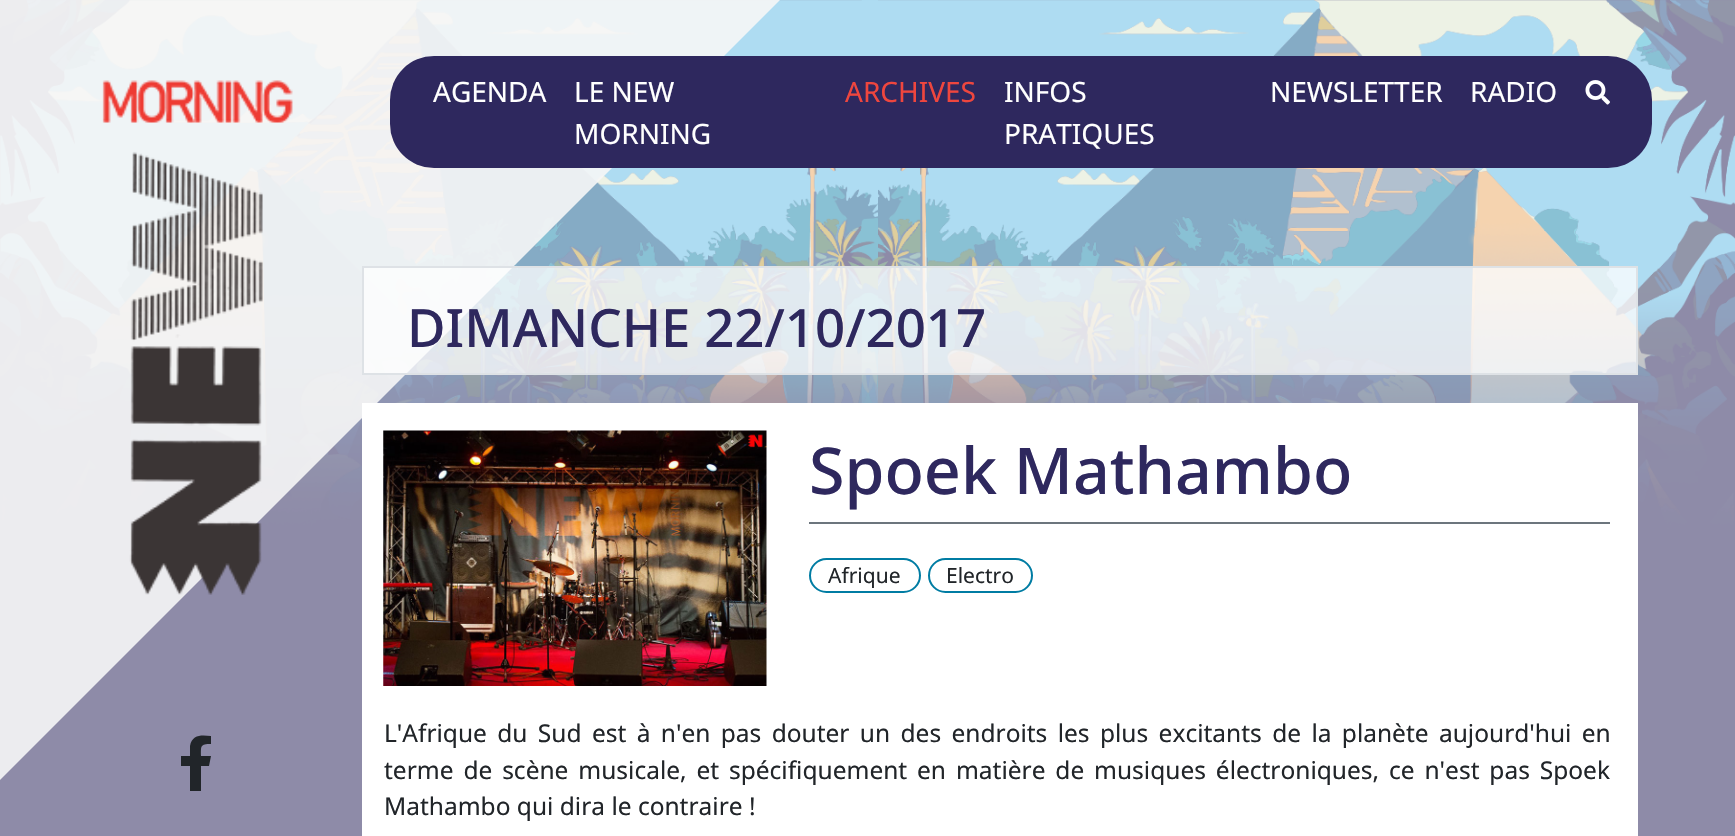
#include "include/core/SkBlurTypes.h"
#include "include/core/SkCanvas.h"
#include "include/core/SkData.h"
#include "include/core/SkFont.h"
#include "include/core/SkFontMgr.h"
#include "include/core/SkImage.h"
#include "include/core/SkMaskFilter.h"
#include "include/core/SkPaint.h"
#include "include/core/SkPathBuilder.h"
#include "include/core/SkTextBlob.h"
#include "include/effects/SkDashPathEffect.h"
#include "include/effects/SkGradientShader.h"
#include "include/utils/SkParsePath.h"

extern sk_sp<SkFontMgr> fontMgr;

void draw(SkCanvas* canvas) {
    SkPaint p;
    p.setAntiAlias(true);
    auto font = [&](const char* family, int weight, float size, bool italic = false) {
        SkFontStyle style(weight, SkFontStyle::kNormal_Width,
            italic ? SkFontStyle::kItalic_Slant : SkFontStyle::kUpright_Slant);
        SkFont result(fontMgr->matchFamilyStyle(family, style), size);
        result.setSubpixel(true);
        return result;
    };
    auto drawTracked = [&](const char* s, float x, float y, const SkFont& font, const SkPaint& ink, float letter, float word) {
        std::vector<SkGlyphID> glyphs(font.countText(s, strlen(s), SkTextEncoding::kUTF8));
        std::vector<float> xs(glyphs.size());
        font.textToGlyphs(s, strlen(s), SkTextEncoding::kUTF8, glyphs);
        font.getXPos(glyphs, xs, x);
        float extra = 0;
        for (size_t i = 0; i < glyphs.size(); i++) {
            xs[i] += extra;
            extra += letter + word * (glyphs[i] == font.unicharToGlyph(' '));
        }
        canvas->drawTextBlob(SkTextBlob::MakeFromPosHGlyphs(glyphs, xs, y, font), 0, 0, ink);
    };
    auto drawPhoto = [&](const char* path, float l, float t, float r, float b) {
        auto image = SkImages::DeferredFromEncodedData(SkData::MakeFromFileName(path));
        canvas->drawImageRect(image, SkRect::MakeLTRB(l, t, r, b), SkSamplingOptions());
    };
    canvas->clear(0xFFFFFFFF);
    drawPhoto("media/1.png", 0, 0, 1735, 836);
    p.setColor(0xE6F6F6F6);
    canvas->drawPath(SkPathBuilder().moveTo(0, 0).lineTo(780, 0).lineTo(0, 780).close().detach(), p);
    drawPhoto("media/2.png", 102, 80, 293, 595);
    p.setColor(0xFF212529);
    canvas->drawPath(SkPathBuilder().moveTo(209, 766).lineTo(201, 766).lineTo(201, 791).lineTo(190, 791).lineTo(190, 766).lineTo(181, 766).lineTo(181, 756).lineTo(190, 756).lineTo(190, 746).cubicTo(192, 734, 202, 735, 211, 736).lineTo(211, 744).cubicTo(200, 744, 201, 746, 201, 756).lineTo(211, 756).close().detach(), p);
    p.setColor(0xFF2E285E);
    canvas->drawRoundRect(SkRect::MakeLTRB(390, 56, 1652, 168), 44, 44, p);
    auto font1 = font("Noto Sans", 400, 28);
    p.setColor(0xFFFFFFFF);
    {
        const struct { const char* s; float x, y; } items[] = {
            {"AGENDA", 433, 102},
            {"LE NEW", 574, 102},
            {"MORNING", 574, 144},
        };
        for (auto [s, x, y] : items) {
            canvas->drawString(s, x, y, font1, p);
        }
    }
    p.setColor(0xFFEF463E);
    canvas->drawString("ARCHIVES", 845, 102, font1, p);
    p.setColor(0xFFFFFFFF);
    {
        const struct { const char* s; float x, y; } items[] = {
            {"INFOS", 1004, 102},
            {"PRATIQUES", 1004, 144},
            {"NEWSLETTER", 1270, 102},
            {"RADIO", 1470, 102},
        };
        for (auto [s, x, y] : items) {
            canvas->drawString(s, x, y, font1, p);
        }
    }
    drawPhoto("media/3.png", 1585, 80, 1610, 105);
    p.setColor(0xBFFFFFFF);
    canvas->drawRect(SkRect::MakeLTRB(363, 267, 1637, 374), p);
    p.setStyle(SkPaint::kStroke_Style);
    p.setStrokeWidth(2);
    p.setColor(0xFFDEE2E6);
    canvas->drawRect(SkRect::MakeLTRB(363, 267, 1637, 374), p);
    auto font2 = font("Noto Sans", 500, 52.75f);
    p.setStyle(SkPaint::kFill_Style);
    p.setColor(0xFF2E285E);
    canvas->drawString("DIMANCHE 22/10/2017", 407, 347, font2, p);
    p.setColor(0xFFFFFFFF);
    canvas->drawRect(SkRect::MakeLTRB(362, 403, 1638, 836), p);
    drawPhoto("media/4.png", 383, 430, 767, 686);
    auto font3 = font("Noto Sans", 500, 64.5f);
    p.setColor(0xFF2E285E);
    canvas->drawString("Spoek Mathambo", 809, 494, font3, p);
    p.setColor(0xFF6C757D);
    canvas->drawRect(SkRect::MakeLTRB(809, 522, 1610, 524), p);
    p.setStyle(SkPaint::kStroke_Style);
    p.setColor(0xFF007CA3);
    canvas->drawRoundRect(SkRect::MakeLTRB(810, 559, 920, 592), 16.5f, 16.5f, p);
    auto font4 = font("Noto Sans", 400, 21);
    p.setStyle(SkPaint::kFill_Style);
    p.setColor(0xFF212529);
    canvas->drawString("Afrique", 828, 583, font4, p);
    p.setStyle(SkPaint::kStroke_Style);
    p.setColor(0xFF007CA3);
    canvas->drawRoundRect(SkRect::MakeLTRB(929, 559, 1032, 592), 16.5f, 16.5f, p);
    p.setStyle(SkPaint::kFill_Style);
    p.setColor(0xFF212529);
    canvas->drawString("Electro", 946, 583, font4, p);
    auto font5 = font("Noto Sans", 400, 24.5f);
    drawTracked("L'Afrique du Sud est à n'en pas douter un des endroits les plus excitants de la planète aujourd'hui en", 384, 742, font5, p, 0, 4);
    drawTracked("terme de scène musicale, et spécifiquement en matière de musiques électroniques, ce n'est pas Spoek", 384, 779, font5, p, 0, 3.5f);
    canvas->drawString("Mathambo qui dira le contraire !", 384, 815, font5, p);
}
